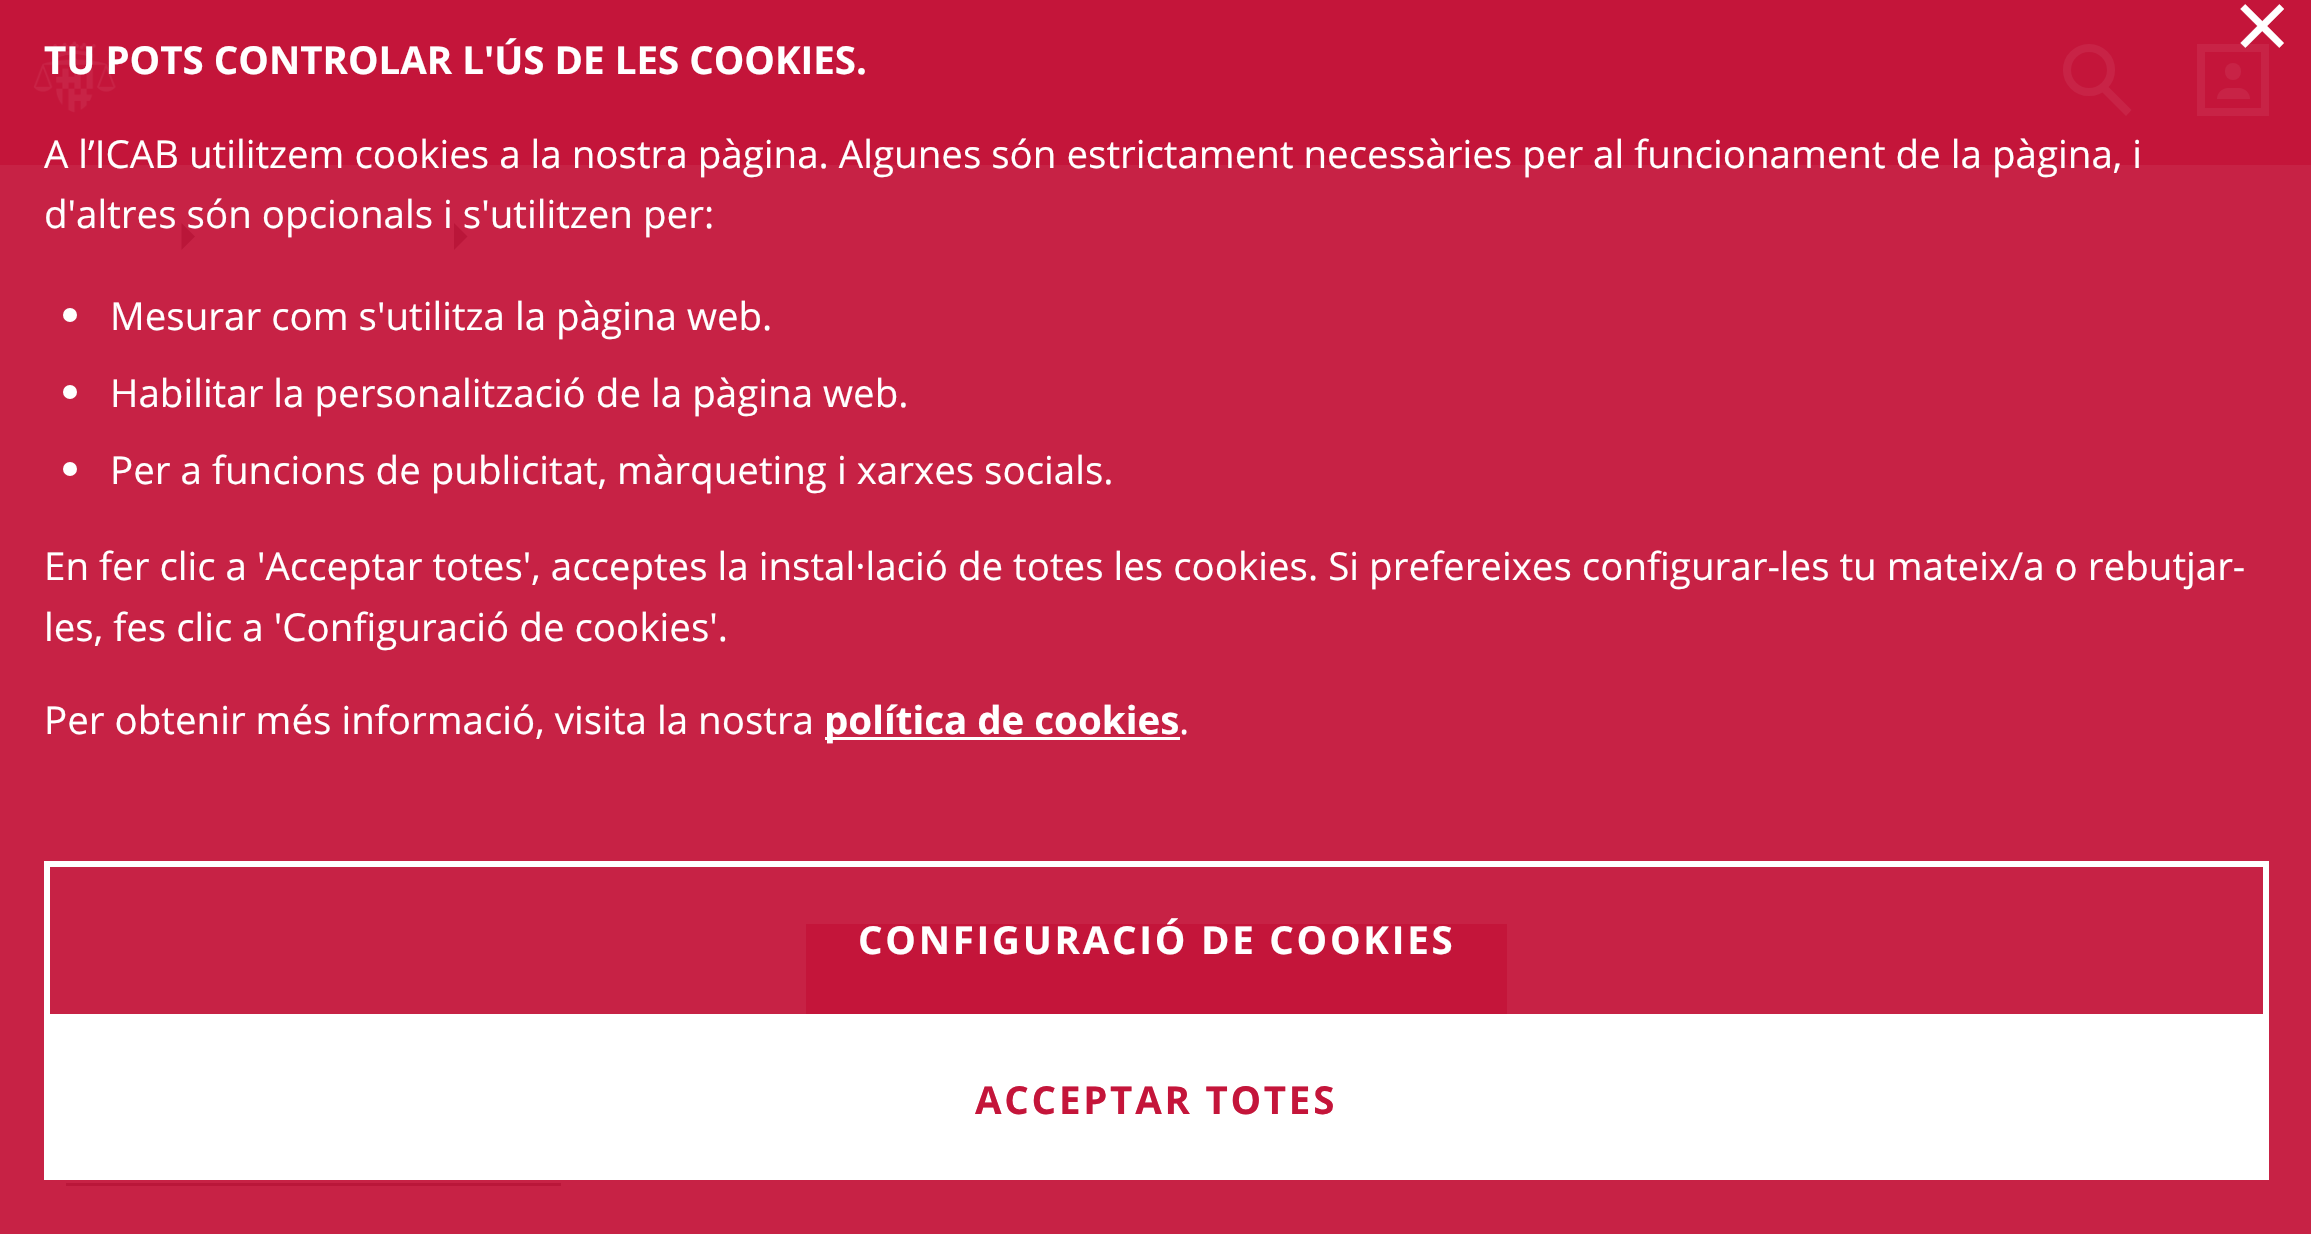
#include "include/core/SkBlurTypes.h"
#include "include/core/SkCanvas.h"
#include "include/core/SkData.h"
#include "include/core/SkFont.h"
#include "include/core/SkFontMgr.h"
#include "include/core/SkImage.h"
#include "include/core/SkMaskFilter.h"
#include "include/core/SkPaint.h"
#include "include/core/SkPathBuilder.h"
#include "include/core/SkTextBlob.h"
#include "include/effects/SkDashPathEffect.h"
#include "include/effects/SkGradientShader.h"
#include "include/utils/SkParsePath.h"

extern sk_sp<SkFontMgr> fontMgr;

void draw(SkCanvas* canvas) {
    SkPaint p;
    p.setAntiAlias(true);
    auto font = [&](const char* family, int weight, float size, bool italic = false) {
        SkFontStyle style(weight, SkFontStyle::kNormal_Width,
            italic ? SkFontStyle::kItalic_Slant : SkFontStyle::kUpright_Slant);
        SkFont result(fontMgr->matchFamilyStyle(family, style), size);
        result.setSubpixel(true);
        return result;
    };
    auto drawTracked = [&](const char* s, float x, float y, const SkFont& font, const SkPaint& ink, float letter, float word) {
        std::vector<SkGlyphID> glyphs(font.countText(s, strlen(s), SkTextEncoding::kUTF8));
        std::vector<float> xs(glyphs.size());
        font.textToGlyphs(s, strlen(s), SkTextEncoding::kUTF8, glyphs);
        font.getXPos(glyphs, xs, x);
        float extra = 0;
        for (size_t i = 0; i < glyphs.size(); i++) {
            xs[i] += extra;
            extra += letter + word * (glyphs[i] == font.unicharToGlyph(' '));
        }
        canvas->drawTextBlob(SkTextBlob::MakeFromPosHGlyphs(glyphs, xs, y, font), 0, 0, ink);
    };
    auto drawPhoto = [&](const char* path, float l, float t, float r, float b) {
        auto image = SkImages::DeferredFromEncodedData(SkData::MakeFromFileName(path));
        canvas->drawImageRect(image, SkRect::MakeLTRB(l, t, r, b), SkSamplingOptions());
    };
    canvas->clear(0xFFC4153A);
    p.setStyle(SkPaint::kStroke_Style);
    p.setStrokeWidth(8);
    p.setColor(0xFFC82346);
    canvas->drawRect(SkRect::MakeLTRB(2201, 48, 2265, 112), p);
    auto font1 = font("Open Sans", 400, 99);
    p.setStyle(SkPaint::kFill_Style);
    p.setColor(0xFFFFFFFF);
    canvas->drawString("×", 2234, 61, font1, p);
    drawPhoto("media/1.png", 33, 41, 116, 113);
    auto font2 = font("Open Sans", 700, 38.5f);
    canvas->drawString("TU POTS CONTROLAR L'ÚS DE LES COOKIES.", 44, 74, font2, p);
    p.setColor(0xFFC72245);
    canvas->drawRect(SkRect::MakeLTRB(0, 165, 2311, 1234), p);
    auto font3 = font("Open Sans", 400, 38.5f);
    p.setColor(0xFFFFFFFF);
    canvas->drawString("A l’ICAB utilitzem cookies a la nostra pàgina. Algunes són estrictament necessàries per al funcionament de la pàgina, i", 44, 168, font3, p);
    p.setColor(0xFFBA1639);
    canvas->drawPath(SkPathBuilder().moveTo(181.5f, 250).lineTo(181.5f, 223).lineTo(195, 236.5f).close().detach(), p);
    canvas->drawPath(SkPathBuilder().moveTo(454, 250).lineTo(454, 223).lineTo(467.5f, 236.5f).close().detach(), p);
    p.setColor(0xFFFFFFFF);
    canvas->drawString("d'altres són opcionals i s'utilitzen per:", 44, 228, font3, p);
    canvas->drawCircle(70, 315, 7, p);
    canvas->drawString("Mesurar com s'utilitza la pàgina web.", 110, 330, font3, p);
    canvas->drawCircle(70, 392, 7, p);
    canvas->drawString("Habilitar la personalització de la pàgina web.", 110, 407, font3, p);
    canvas->drawCircle(70, 469, 7, p);
    {
        const struct { const char* s; float x, y; } items[] = {
            {"Per a funcions de publicitat, màrqueting i xarxes socials.", 110, 484},
            {"En fer clic a 'Acceptar totes', acceptes la instal·lació de totes les cookies. Si prefereixes configurar-les tu mateix/a o rebutjar-", 44, 580},
            {"les, fes clic a 'Configuració de cookies'.", 44, 641},
            {"Per obtenir més informació, visita la nostra", 44, 734},
        };
        for (auto [s, x, y] : items) {
            canvas->drawString(s, x, y, font3, p);
        }
    }
    canvas->drawRect(SkRect::MakeLTRB(825, 737, 1180, 740), p);
    canvas->drawString("política de cookies", 824, 734, font2, p);
    canvas->drawString(".", 1179, 734, font3, p);
    p.setColor(0xFFC4153A);
    canvas->drawRect(SkRect::MakeLTRB(806, 924, 1507, 1014), p);
    p.setStyle(SkPaint::kStroke_Style);
    p.setStrokeWidth(6);
    p.setColor(0xFFFFFFFF);
    canvas->drawRect(SkRect::MakeLTRB(47, 864, 2266, 1017), p);
    p.setStyle(SkPaint::kFill_Style);
    drawTracked("CONFIGURACIÓ DE COOKIES", 858, 954, font2, p, 2.75f, 0);
    canvas->drawRect(SkRect::MakeLTRB(44, 1020, 2269, 1180), p);
    p.setColor(0xFFC4153A);
    drawTracked("ACCEPTAR TOTES", 975, 1114, font2, p, 2.75f, 0);
    p.setStyle(SkPaint::kStroke_Style);
    p.setStrokeWidth(8);
    p.setColor(0xFFC82346);
    canvas->drawCircle(2089, 70, 22, p);
    p.setStyle(SkPaint::kFill_Style);
    canvas->drawPath(SkPathBuilder().moveTo(2106.5f, 85).lineTo(2131.5f, 110).lineTo(2126, 116).lineTo(2100.5f, 90.5f).close().detach(), p);
    canvas->drawRoundRect(SkRect::MakeLTRB(2225, 63, 2241, 80), 8, 8, p);
    canvas->drawPath(SkPathBuilder().moveTo(2228, 88).lineTo(2239, 88).cubicTo(2245, 88, 2250, 93, 2250, 99).lineTo(2217, 99).cubicTo(2217, 93, 2222, 88, 2228, 88).close().detach(), p);
    p.setColor(0xFFBA1639);
    canvas->drawRect(SkRect::MakeLTRB(66, 1183, 561, 1186), p);
}
